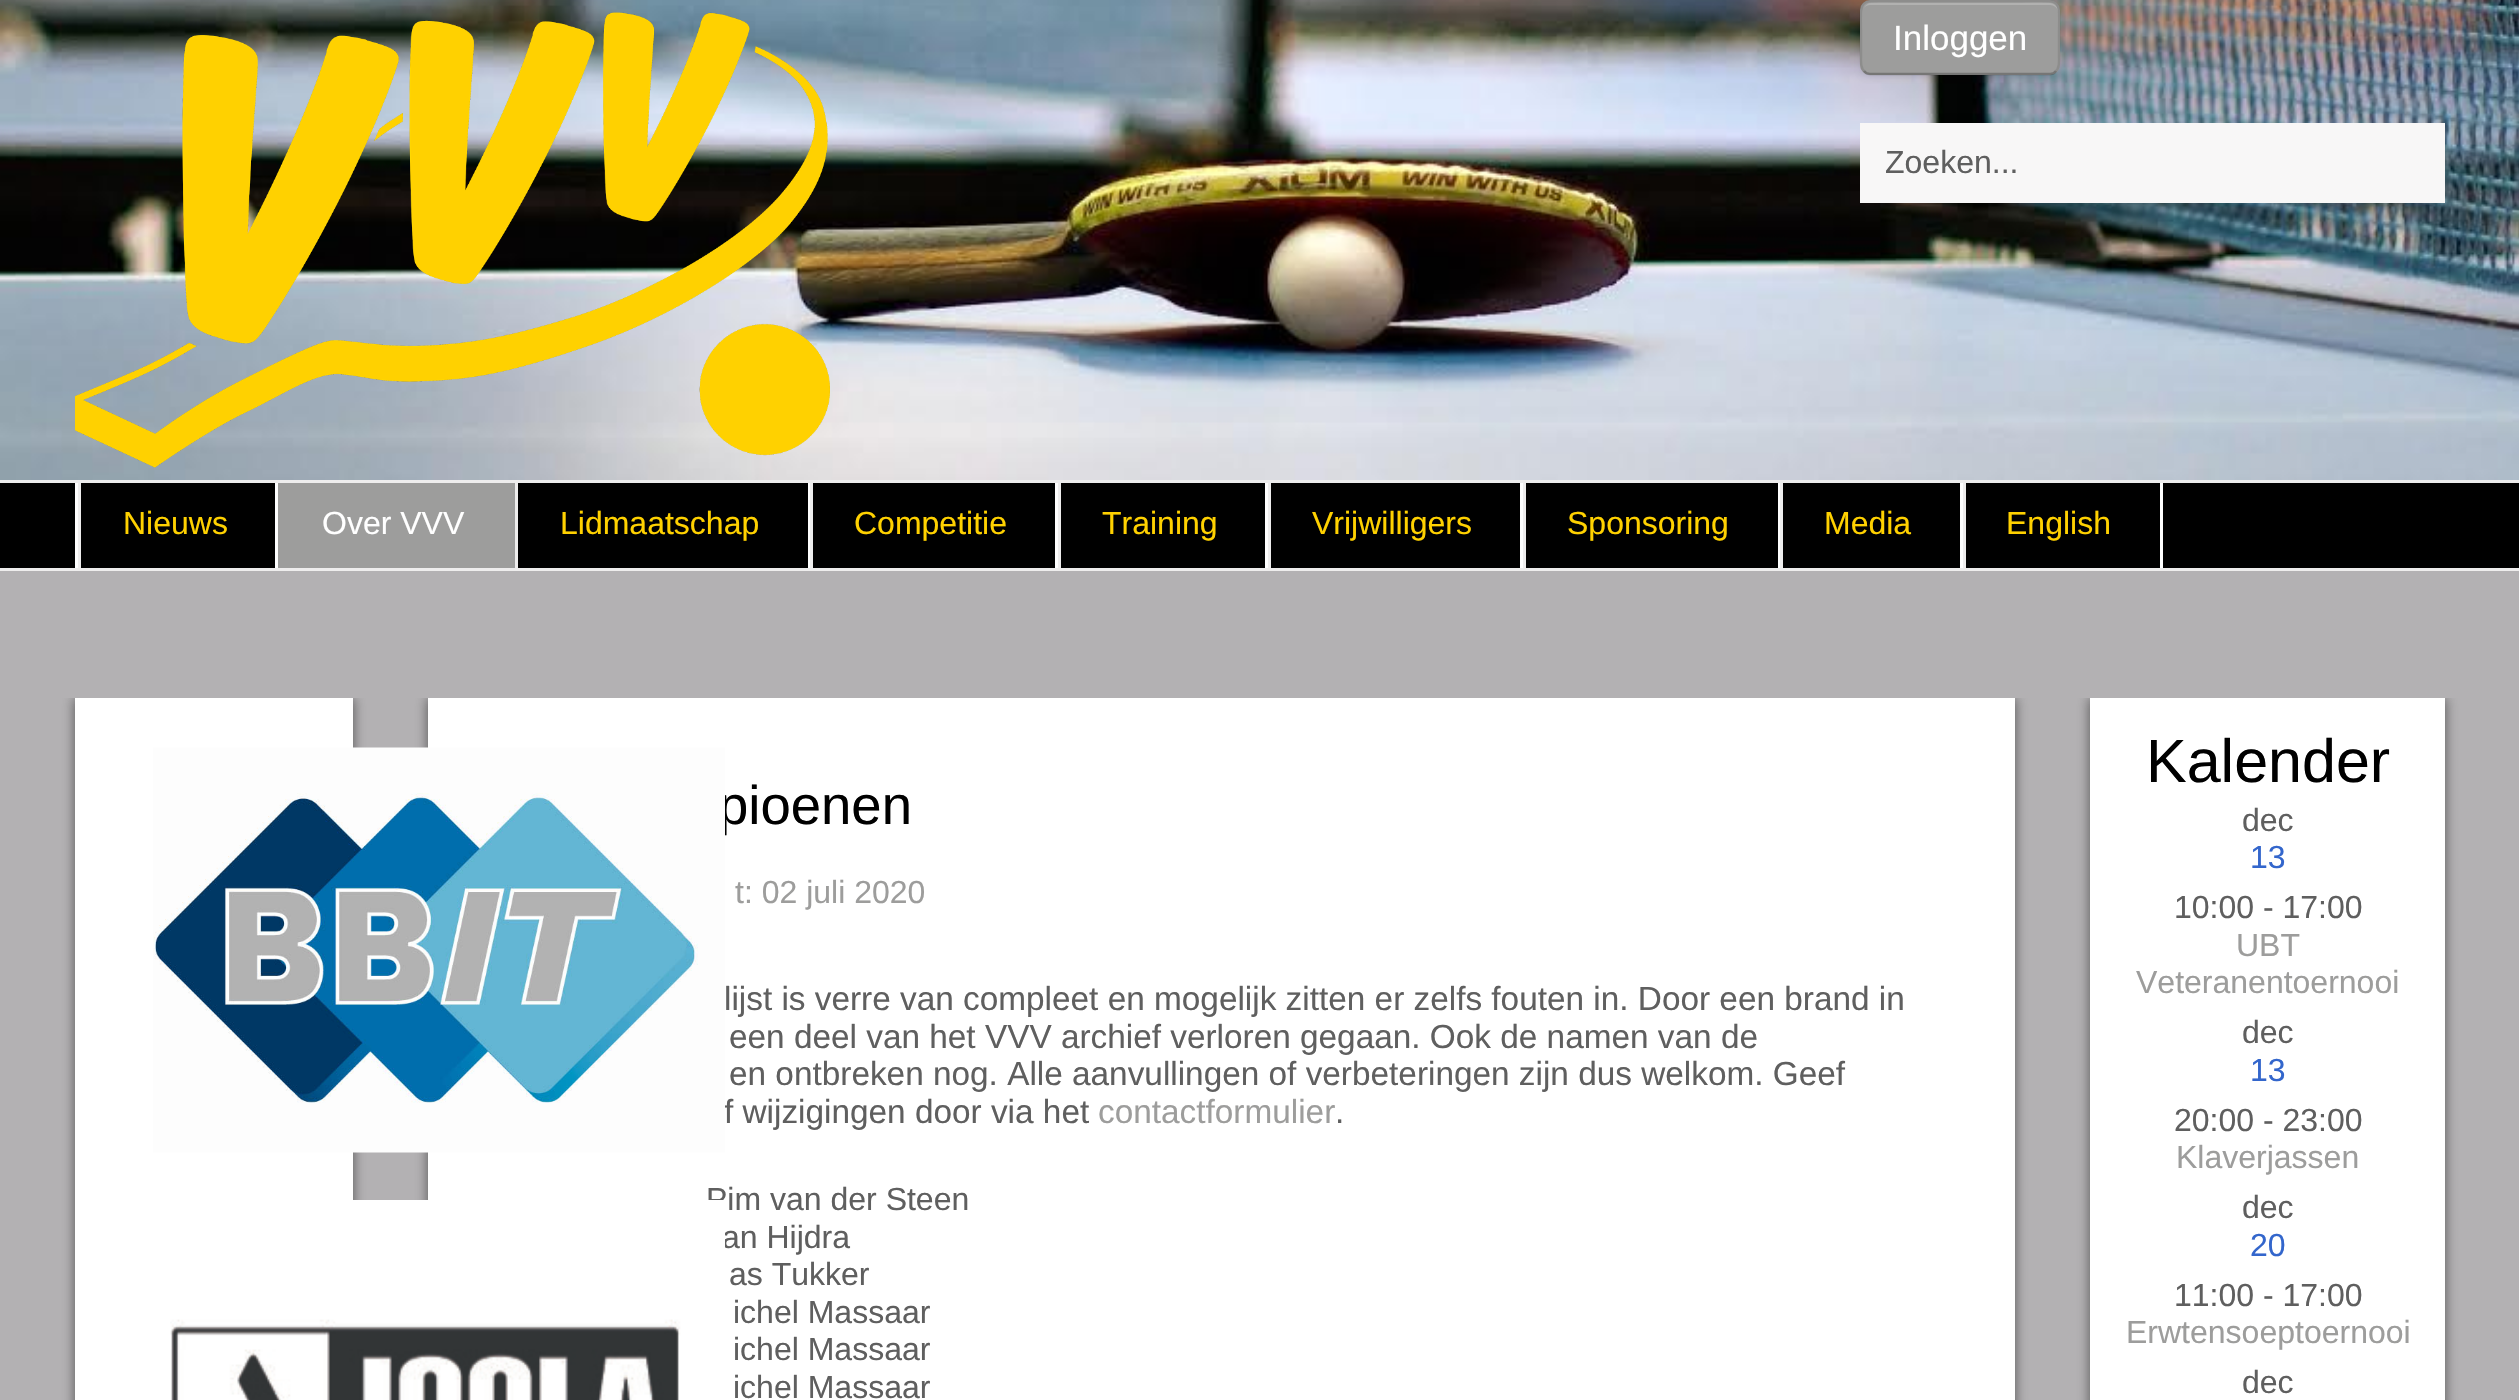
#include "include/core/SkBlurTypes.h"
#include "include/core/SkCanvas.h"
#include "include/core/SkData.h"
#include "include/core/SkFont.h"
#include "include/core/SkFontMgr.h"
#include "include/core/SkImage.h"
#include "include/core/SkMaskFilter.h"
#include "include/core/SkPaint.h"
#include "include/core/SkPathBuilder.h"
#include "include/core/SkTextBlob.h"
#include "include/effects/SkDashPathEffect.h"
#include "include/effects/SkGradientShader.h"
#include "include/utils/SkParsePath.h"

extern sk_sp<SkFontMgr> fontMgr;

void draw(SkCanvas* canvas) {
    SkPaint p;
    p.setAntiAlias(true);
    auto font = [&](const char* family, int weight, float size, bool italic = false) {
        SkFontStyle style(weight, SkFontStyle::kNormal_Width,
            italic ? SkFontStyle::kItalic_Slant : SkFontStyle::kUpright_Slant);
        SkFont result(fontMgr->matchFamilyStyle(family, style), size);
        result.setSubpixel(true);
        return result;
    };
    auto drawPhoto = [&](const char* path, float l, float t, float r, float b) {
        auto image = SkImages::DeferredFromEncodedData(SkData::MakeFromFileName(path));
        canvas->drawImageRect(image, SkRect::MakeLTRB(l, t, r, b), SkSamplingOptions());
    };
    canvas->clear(0xFFB3B1B3);
    drawPhoto("media/1.png", 0, 0, 2519, 480);
    drawPhoto("media/2.png", 75, 12, 830, 468);
    p.setColor(0x0D000000);
    p.setMaskFilter(SkMaskFilter::MakeBlur(kNormal_SkBlurStyle, 2.5f));
    canvas->drawRoundRect(SkRect::MakeLTRB(1860, 3, 2060, 78), 10, 10, p);
    p.setMaskFilter(nullptr);
    p.setColor(0xFF9D9D9C);
    canvas->drawRoundRect(SkRect::MakeLTRB(1860, 0, 2060, 75), 10, 10, p);
    p.setColor(0xFFB1B1B0);
    canvas->drawPath(SkPathBuilder().moveTo(1870, 5).lineTo(2050, 5).cubicTo(2054, 5, 2058, 8, 2058, 12).lineTo(2058, 11).cubicTo(2058, 7, 2054, 3, 2050, 3).lineTo(1871, 3).cubicTo(1868, 3, 1865, 5, 1864, 8).cubicTo(1865, 6, 1868, 5, 1870, 5).close().detach(), p);
    p.setStyle(SkPaint::kStroke_Style);
    p.setStrokeWidth(2.5f);
    p.setColor(0x40000000);
    canvas->drawPath(SkPathBuilder().moveTo(2056, 71).cubicTo(2054.5f, 73, 2052.5f, 74, 2050, 74).lineTo(1870, 74).cubicTo(1867.5f, 74, 1865.5f, 73, 1864, 71).detach(), p);
    p.setColor(0x1A000000);
    canvas->drawPath(SkPathBuilder().moveTo(1864, 71).cubicTo(1860, 67.5f, 1861, 60.5f, 1861, 56).lineTo(1861, 37.5f).cubicTo(1861, -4.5f, 1855.5f, 1, 1900, 1).lineTo(2020, 1).cubicTo(2064.5f, 1, 2059, -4.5f, 2059, 37.5f).lineTo(2059, 56).cubicTo(2059, 60.5f, 2060, 67.5f, 2056, 71).detach(), p);
    auto font1 = font("Liberation Sans", 400, 35);
    p.setStyle(SkPaint::kFill_Style);
    p.setColor(0xFFFFFFFF);
    canvas->drawString("Inloggen", 1893, 50, font1, p);
    p.setColor(0xFFF8F7F7);
    canvas->drawRect(SkRect::MakeLTRB(1860, 123, 2445, 203), p);
    auto font2 = font("Liberation Sans", 400, 32);
    p.setColor(0xFF5F5F5F);
    canvas->drawString("Zoeken...", 1885, 173, font2, p);
    {
        const struct { float l, t, r, b; SkColor color; } items[] = {
            {0, 483, 2519, 568, 0xFF000000},
            {0, 480, 2519, 483, 0xFFEEEDED},
            {0, 568, 2519, 571, 0xFFEEEDED},
            {75, 483, 78, 568, 0xFFFFFFFF},
            {275, 483, 278, 568, 0xFFFFFFFF},
            {78, 483, 81, 568, 0xFFEEEDED},
        };
        for (auto [l, t, r, b, color] : items) {
            p.setColor(color);
            canvas->drawRect(SkRect::MakeLTRB(l, t, r, b), p);
        }
    }
    p.setColor(0xFFFFD100);
    canvas->drawString("Nieuws", 123, 534, font2, p);
    p.setColor(0xFF9D9D9C);
    canvas->drawRect(SkRect::MakeLTRB(278, 483, 515, 568), p);
    p.setColor(0xFFFFFFFF);
    canvas->drawString("Over VVV", 322, 534, font2, p);
    canvas->drawRect(SkRect::MakeLTRB(808, 483, 810, 568), p);
    p.setColor(0xFFEEEDED);
    canvas->drawRect(SkRect::MakeLTRB(515, 483, 518, 568), p);
    p.setColor(0xFFFFD100);
    canvas->drawString("Lidmaatschap", 560, 534, font2, p);
    p.setColor(0xFFFFFFFF);
    canvas->drawRect(SkRect::MakeLTRB(1055, 483, 1058, 568), p);
    p.setColor(0xFFEEEDED);
    canvas->drawRect(SkRect::MakeLTRB(810, 483, 813, 568), p);
    p.setColor(0xFFFFD100);
    canvas->drawString("Competitie", 854, 534, font2, p);
    p.setColor(0xFFFFFFFF);
    canvas->drawRect(SkRect::MakeLTRB(1265, 483, 1268, 568), p);
    p.setColor(0xFFEEEDED);
    canvas->drawRect(SkRect::MakeLTRB(1058, 483, 1061, 568), p);
    p.setColor(0xFFFFD100);
    canvas->drawString("Training", 1102, 534, font2, p);
    p.setColor(0xFFFFFFFF);
    canvas->drawRect(SkRect::MakeLTRB(1520, 483, 1523, 568), p);
    p.setColor(0xFFEEEDED);
    canvas->drawRect(SkRect::MakeLTRB(1268, 483, 1271, 568), p);
    p.setColor(0xFFFFD100);
    canvas->drawString("Vrijwilligers", 1312, 534, font2, p);
    p.setColor(0xFFFFFFFF);
    canvas->drawRect(SkRect::MakeLTRB(1778, 483, 1780, 568), p);
    p.setColor(0xFFEEEDED);
    canvas->drawRect(SkRect::MakeLTRB(1523, 483, 1526, 568), p);
    p.setColor(0xFFFFD100);
    canvas->drawString("Sponsoring", 1567, 534, font2, p);
    p.setColor(0xFFFFFFFF);
    canvas->drawRect(SkRect::MakeLTRB(1960, 483, 1963, 568), p);
    p.setColor(0xFFEEEDED);
    canvas->drawRect(SkRect::MakeLTRB(1780, 483, 1783, 568), p);
    p.setColor(0xFFFFD100);
    canvas->drawString("Media", 1824, 534, font2, p);
    p.setColor(0xFFFFFFFF);
    canvas->drawRect(SkRect::MakeLTRB(2160, 483, 2163, 568), p);
    p.setColor(0xFFEEEDED);
    canvas->drawRect(SkRect::MakeLTRB(1963, 483, 1966, 568), p);
    p.setColor(0xFFFFD100);
    canvas->drawString("English", 2006, 534, font2, p);
    canvas->save();
    canvas->clipRect(SkRect::MakeLTRB(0, 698, 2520, 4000));
    p.setColor(0xBF323232);
    p.setMaskFilter(SkMaskFilter::MakeBlur(kNormal_SkBlurStyle, 6));
    canvas->drawRect(SkRect::MakeLTRB(75, 698, 353, 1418), p);
    p.setMaskFilter(nullptr);
    canvas->restore();
    p.setColor(0xFFFFFFFF);
    canvas->drawRect(SkRect::MakeLTRB(75, 698, 353, 1400), p);
    canvas->save();
    canvas->clipRect(SkRect::MakeLTRB(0, 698, 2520, 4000));
    p.setColor(0xBF323232);
    p.setMaskFilter(SkMaskFilter::MakeBlur(kNormal_SkBlurStyle, 6));
    canvas->drawRect(SkRect::MakeLTRB(428, 698, 2015, 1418), p);
    p.setMaskFilter(nullptr);
    canvas->restore();
    p.setColor(0xFFFFFFFF);
    canvas->drawRect(SkRect::MakeLTRB(428, 698, 2015, 1400), p);
    auto font3 = font("Liberation Sans", 400, 54.5f);
    p.setColor(0xFF000000);
    canvas->drawString("pioenen", 718, 824, font3, p);
    auto font4 = font("Liberation Sans", 400, 33.35f);
    p.setColor(0xFF5F5F5F);
    canvas->drawString("f wijzigingen door via het", 724, 1123, font4, p);
    drawPhoto("media/3.png", 153, 747, 725, 1153);
    canvas->drawString("Pim van der Steen", 706, 1210, font2, p);
    canvas->drawString("an Hijdra", 722, 1248, font2, p);
    drawPhoto("media/4.png", 170, 1200, 725, 1400);
    p.setColor(0xFF9D9D9C);
    canvas->drawString("t: 02 juli 2020", 735, 903, font2, p);
    p.setColor(0xFF5F5F5F);
    {
        const struct { const char* s; float x, y; } items[] = {
            {"lijst is verre van compleet en mogelijk zitten er zelfs fouten in. Door een brand in", 724, 1010},
            {"een deel van het VVV archief verloren gegaan. Ook de namen van de", 729, 1048},
            {"en ontbreken nog. Alle aanvullingen of verbeteringen zijn dus welkom. Geef", 729, 1085},
        };
        for (auto [s, x, y] : items) {
            canvas->drawString(s, x, y, font4, p);
        }
    }
    p.setColor(0xFF9D9D9C);
    canvas->drawString("contactformulier", 1098, 1123, font4, p);
    p.setColor(0xFF5F5F5F);
    canvas->drawString(".", 1335, 1123, font4, p);
    {
        const struct { const char* s; float x, y; } items[] = {
            {"as Tukker", 729, 1285},
            {"ichel Massaar", 733, 1323},
            {"ichel Massaar", 733, 1360},
            {"ichel Massaar", 733, 1398},
        };
        for (auto [s, x, y] : items) {
            canvas->drawString(s, x, y, font2, p);
        }
    }
    canvas->save();
    canvas->clipRect(SkRect::MakeLTRB(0, 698, 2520, 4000));
    p.setColor(0xBF323232);
    p.setMaskFilter(SkMaskFilter::MakeBlur(kNormal_SkBlurStyle, 6));
    canvas->drawRect(SkRect::MakeLTRB(2090, 698, 2445, 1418), p);
    p.setMaskFilter(nullptr);
    canvas->restore();
    p.setColor(0xFFFFFFFF);
    canvas->drawRect(SkRect::MakeLTRB(2090, 698, 2445, 1400), p);
    auto font5 = font("Liberation Sans", 400, 61);
    p.setColor(0xFF000000);
    canvas->drawString("Kalender", 2146, 782, font5, p);
    p.setColor(0xFF5F5F5F);
    canvas->drawString("dec", 2242, 831, font2, p);
    p.setColor(0xFF3366CC);
    canvas->drawString("13", 2250, 868, font2, p);
    p.setColor(0xFF5F5F5F);
    canvas->drawString("10:00 - 17:00", 2174, 918, font2, p);
    p.setColor(0xFF9D9D9C);
    canvas->drawString("UBT", 2236, 956, font2, p);
    canvas->drawString("Veteranentoernooi", 2136, 993, font2, p);
    p.setColor(0xFF5F5F5F);
    canvas->drawString("dec", 2242, 1043, font2, p);
    p.setColor(0xFF3366CC);
    canvas->drawString("13", 2250, 1081, font2, p);
    p.setColor(0xFF5F5F5F);
    canvas->drawString("20:00 - 23:00", 2174, 1131, font2, p);
    p.setColor(0xFF9D9D9C);
    canvas->drawString("Klaverjassen", 2176, 1168, font2, p);
    p.setColor(0xFF5F5F5F);
    canvas->drawString("dec", 2242, 1218, font2, p);
    p.setColor(0xFF3366CC);
    canvas->drawString("20", 2250, 1256, font2, p);
    p.setColor(0xFF5F5F5F);
    canvas->drawString("11:00 - 17:00", 2174, 1306, font2, p);
    p.setColor(0xFF9D9D9C);
    canvas->drawString("Erwtensoeptoernooi", 2126, 1343, font2, p);
    p.setColor(0xFF5F5F5F);
    canvas->drawString("dec", 2242, 1393, font2, p);
}
